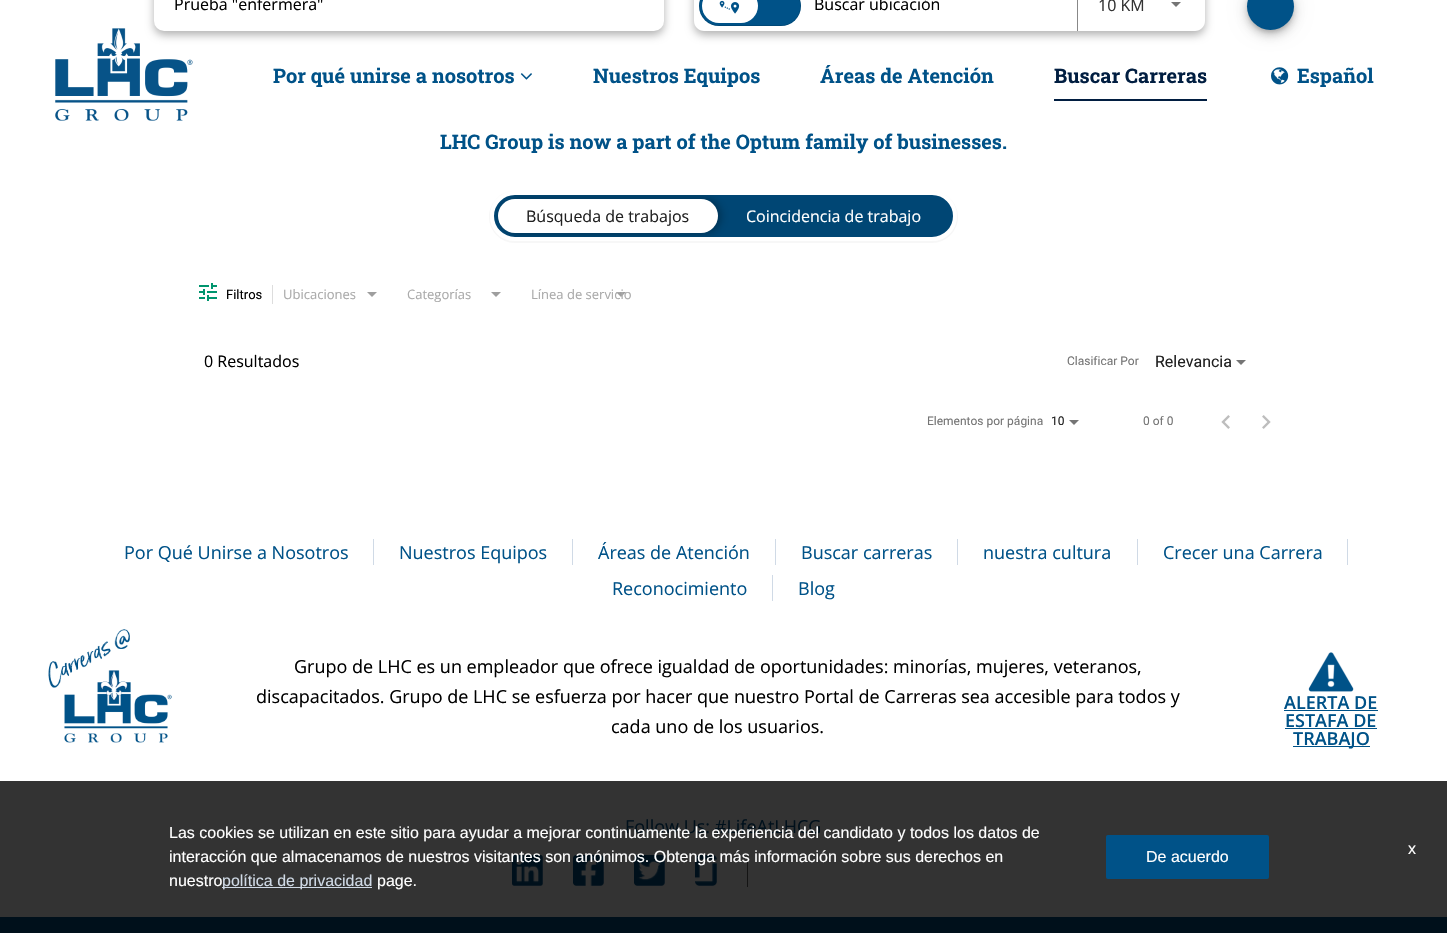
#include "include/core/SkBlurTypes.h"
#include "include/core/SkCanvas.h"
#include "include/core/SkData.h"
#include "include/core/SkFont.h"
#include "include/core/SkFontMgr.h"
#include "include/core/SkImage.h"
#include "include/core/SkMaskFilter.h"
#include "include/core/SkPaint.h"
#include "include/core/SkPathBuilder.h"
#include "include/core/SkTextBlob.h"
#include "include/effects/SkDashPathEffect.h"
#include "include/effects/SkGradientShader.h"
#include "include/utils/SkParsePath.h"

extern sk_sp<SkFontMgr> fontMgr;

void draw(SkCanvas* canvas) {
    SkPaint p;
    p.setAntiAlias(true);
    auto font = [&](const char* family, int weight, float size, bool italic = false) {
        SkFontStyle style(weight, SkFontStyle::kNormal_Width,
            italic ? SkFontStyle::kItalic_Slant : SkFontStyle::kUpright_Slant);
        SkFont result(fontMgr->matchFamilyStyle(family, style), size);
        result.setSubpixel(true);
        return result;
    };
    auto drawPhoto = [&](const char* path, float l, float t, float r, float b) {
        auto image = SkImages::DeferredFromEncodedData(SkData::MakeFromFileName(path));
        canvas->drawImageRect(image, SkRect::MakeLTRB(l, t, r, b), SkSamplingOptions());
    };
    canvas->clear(0xFFFFFFFF);
    p.setColor(0xFF333333);
    canvas->drawRect(SkRect::MakeLTRB(0, 781, 1447, 917), p);
    drawPhoto("media/5.png", 55, 28, 193, 121);
    p.setColor(0x4D000000);
    p.setMaskFilter(SkMaskFilter::MakeBlur(kNormal_SkBlurStyle, 4));
    canvas->drawRoundRect(SkRect::MakeLTRB(154, -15, 664, 35), 10, 10, p);
    p.setMaskFilter(nullptr);
    p.setColor(0xFFFFFFFF);
    canvas->drawRoundRect(SkRect::MakeLTRB(154, -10, 664, 31), 10, 10, p);
    auto font1 = font("Open Sans", 400, 16);
    p.setColor(0xFF000000);
    canvas->drawString("Prueba \"enfermera\"", 174, 10, font1, p);
    p.setColor(0x4D000000);
    p.setMaskFilter(SkMaskFilter::MakeBlur(kNormal_SkBlurStyle, 4));
    canvas->drawRoundRect(SkRect::MakeLTRB(694, -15, 1205, 35), 10, 10, p);
    p.setMaskFilter(nullptr);
    p.setColor(0xFFFFFFFF);
    canvas->drawPath(SkPathBuilder().moveTo(704, -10).lineTo(1077, -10).lineTo(1077, 31).lineTo(704, 31).cubicTo(698.5f, 31, 694, 26.5f, 694, 21).lineTo(694, 0).cubicTo(694, -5.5f, 698.5f, -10, 704, -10).close().detach(), p);
    p.setColor(0xFF005288);
    canvas->drawRoundRect(SkRect::MakeLTRB(699, -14, 801, 26), 20, 20, p);
    p.setStyle(SkPaint::kStroke_Style);
    p.setStrokeWidth(1);
    p.setColor(0x1F000000);
    canvas->drawRoundRect(SkRect::MakeLTRB(699.5f, -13.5f, 800.5f, 25.5f), 19.5f, 19.5f, p);
    p.setStyle(SkPaint::kFill_Style);
    p.setColor(0xFF005288);
    canvas->drawPath(SkPathBuilder().moveTo(719, -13).lineTo(760, -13).lineTo(760, 25).lineTo(719, 25).cubicTo(708.5f, 25, 700, 16.5f, 700, 6).cubicTo(700, -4.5f, 708.5f, -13, 719, -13).close().detach(), p);
    p.setColor(0xFFFFFFFF);
    canvas->drawRoundRect(SkRect::MakeLTRB(702, -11, 758, 23), 17, 17, p);
    drawPhoto("media/1.png", 719, 0, 740, 14);
    p.setColor(0xFF005288);
    canvas->drawPath(SkPathBuilder().moveTo(760, -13).lineTo(781, -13).cubicTo(791.5f, -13, 800, -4.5f, 800, 6).cubicTo(800, 16.5f, 791.5f, 25, 781, 25).lineTo(760, 25).close().detach(), p);
    p.setColor(0xFF000000);
    canvas->drawString("Buscar ubicación", 814, 10, font1, p);
    p.setColor(0xFFFFFFFF);
    canvas->drawPath(SkPathBuilder().moveTo(1077, -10).lineTo(1195, -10).cubicTo(1200.5f, -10, 1205, -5.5f, 1205, 0).lineTo(1205, 21).cubicTo(1205, 26.5f, 1200.5f, 31, 1195, 31).lineTo(1077, 31).close().detach(), p);
    p.setColor(0xFF888888);
    canvas->drawRect(SkRect::MakeLTRB(1077, 0, 1078, 31), p);
    p.setColor(0xFF333333);
    canvas->drawString("10 KM", 1098, 11, font1, p);
    p.setColor(0xFF757575);
    canvas->drawPath(SkPathBuilder().moveTo(1171, 2).lineTo(1181, 2).lineTo(1176, 7).close().detach(), p);
    p.setColor(0x1F000000);
    p.setMaskFilter(SkMaskFilter::MakeBlur(kNormal_SkBlurStyle, 9));
    canvas->drawRoundRect(SkRect::MakeLTRB(1247, -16, 1294, 31), 23.5f, 23.5f, p);
    p.setMaskFilter(nullptr);
    p.setColor(0x24000000);
    p.setMaskFilter(SkMaskFilter::MakeBlur(kNormal_SkBlurStyle, 5));
    canvas->drawRoundRect(SkRect::MakeLTRB(1247, -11, 1294, 36), 23.5f, 23.5f, p);
    p.setMaskFilter(nullptr);
    p.setColor(0x33000000);
    p.setMaskFilter(SkMaskFilter::MakeBlur(kNormal_SkBlurStyle, 2.5f));
    canvas->drawRoundRect(SkRect::MakeLTRB(1248, -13, 1293, 32), 22.5f, 22.5f, p);
    p.setMaskFilter(nullptr);
    p.setColor(0xFF005288);
    canvas->drawCircle(1270.5f, 6.5f, 23.5f, p);
    p.setColor(0xFFF7F7F7);
    canvas->drawPath(SkPathBuilder().moveTo(515, 191).cubicTo(501, 191, 489, 203, 489, 217).cubicTo(489, 231, 501, 243, 515, 243).lineTo(932, 243).cubicTo(946, 243, 958, 231, 958, 217).cubicTo(958, 203, 946, 191, 932, 191).cubicTo(956, 191, 966, 223, 946, 237).cubicTo(942, 240, 937, 241, 932, 241).lineTo(515, 241).cubicTo(482, 241, 482, 191, 515, 191).close().detach(), p);
    p.setColor(0xFF004674);
    canvas->drawRoundRect(SkRect::MakeLTRB(492, 193, 955, 239), 23, 23, p);
    p.setStyle(SkPaint::kStroke_Style);
    p.setStrokeWidth(4);
    p.setColor(0xFFFFFFFF);
    canvas->drawRoundRect(SkRect::MakeLTRB(492, 193, 955, 239), 23, 23, p);
    canvas->save();
    canvas->clipPath(SkPathBuilder().moveTo(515, 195).lineTo(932, 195).cubicTo(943.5f, 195, 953, 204.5f, 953, 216).cubicTo(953, 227.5f, 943.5f, 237, 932, 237).lineTo(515, 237).cubicTo(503.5f, 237, 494, 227.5f, 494, 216).cubicTo(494, 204.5f, 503.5f, 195, 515, 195).close().detach(), true);
    p.setStyle(SkPaint::kFill_Style);
    p.setColor(0x4D000000);
    p.setMaskFilter(SkMaskFilter::MakeBlur(kNormal_SkBlurStyle, 4));
    canvas->drawRoundRect(SkRect::MakeLTRB(501, 199, 721, 233), 17, 17, p);
    p.setMaskFilter(nullptr);
    canvas->restore();
    p.setColor(0xFFFFFFFF);
    canvas->drawRoundRect(SkRect::MakeLTRB(498, 199, 718, 233), 17, 17, p);
    p.setColor(0xFF212121);
    canvas->drawString("Búsqueda de trabajos", 526, 222, font1, p);
    p.setColor(0xFFFFFFFF);
    canvas->drawString("Coincidencia de trabajo", 746, 222, font1, p);
    drawPhoto("media/2.png", 199, 283, 217, 301);
    p.setColor(0xFFDDDDDD);
    canvas->drawRect(SkRect::MakeLTRB(272, 285, 273, 304), p);
    auto font2 = font("Roboto", 400, 13);
    p.setColor(0xFF000000);
    canvas->drawString("Filtros", 226, 299, font2, p);
    auto font3 = font("Open Sans", 400, 13);
    p.setColor(0xFFAAAAAA);
    canvas->drawString("Ubicaciones", 283, 299, font3, p);
    p.setColor(0xFF9E9E9E);
    canvas->drawPath(SkPathBuilder().moveTo(367, 292).lineTo(377, 292).lineTo(372, 297).close().detach(), p);
    p.setColor(0xFFAAAAAA);
    canvas->drawString("Categorías", 407, 299, font3, p);
    p.setColor(0xFF9E9E9E);
    canvas->drawPath(SkPathBuilder().moveTo(491, 292).lineTo(501, 292).lineTo(496, 297).close().detach(), p);
    canvas->drawPath(SkPathBuilder().moveTo(616, 292).lineTo(626, 292).lineTo(621, 297).close().detach(), p);
    p.setColor(0xFFAAAAAA);
    canvas->drawString("Línea de servicio", 531, 299, font3, p);
    p.setColor(0xFF000000);
    canvas->drawString("0 Resultados", 204, 367, font1, p);
    auto font4 = font("Roboto", 400, 12);
    p.setColor(0xFF757575);
    canvas->drawString("Clasificar Por", 1067, 365, font4, p);
    auto font5 = font("Roboto", 400, 16);
    p.setColor(0xFF212121);
    canvas->drawString("Relevancia", 1155, 367, font5, p);
    p.setColor(0xFF757575);
    canvas->drawPath(SkPathBuilder().moveTo(1236, 360).lineTo(1246, 360).lineTo(1241, 365).close().detach(), p);
    canvas->drawString("Elementos por página", 927, 425, font4, p);
    p.setColor(0xFF212121);
    canvas->drawString("10", 1051, 425, font4, p);
    p.setColor(0xFF757575);
    canvas->drawPath(SkPathBuilder().moveTo(1069, 420).lineTo(1079, 420).lineTo(1074, 425).close().detach(), p);
    canvas->drawString("0 of 0", 1143, 425, font4, p);
    drawPhoto("media/3.png", 1221, 415, 1230, 429);
    drawPhoto("media/4.png", 1262, 415, 1271, 429);
    auto font6 = font("Roboto Slab", 700, 20);
    p.setColor(0xFF005288);
    canvas->drawString("Por qué unirse a nosotros", 273, 83, font6, p);
    drawPhoto("media/6.png", 520, 73, 532, 80);
    canvas->drawString("Nuestros Equipos", 593, 83, font6, p);
    canvas->drawString("Áreas de Atención", 820, 83, font6, p);
    p.setColor(0xFF011E41);
    canvas->drawRect(SkRect::MakeLTRB(1054, 99, 1207, 101), p);
    canvas->drawString("Buscar Carreras", 1054, 83, font6, p);
    drawPhoto("media/7.png", 1271, 67, 1289, 85);
    p.setColor(0xFF005288);
    canvas->drawString("Español", 1297, 83, font6, p);
    canvas->drawString("LHC Group is now a part of the Optum family of businesses.", 440, 149, font6, p);
    p.setColor(0xFFD0DAE6);
    canvas->drawRect(SkRect::MakeLTRB(373, 539, 374, 565), p);
    auto font7 = font("Open Sans", 400, 18);
    p.setColor(0xFF005288);
    canvas->drawString("Por Qué Unirse a Nosotros", 124, 559, font7, p);
    p.setColor(0xFFD0DAE6);
    canvas->drawRect(SkRect::MakeLTRB(572, 539, 573, 565), p);
    p.setColor(0xFF005288);
    canvas->drawString("Nuestros Equipos", 399, 559, font7, p);
    p.setColor(0xFFD0DAE6);
    canvas->drawRect(SkRect::MakeLTRB(775, 539, 776, 565), p);
    p.setColor(0xFF005288);
    canvas->drawString("Áreas de Atención", 598, 559, font7, p);
    p.setColor(0xFFD0DAE6);
    canvas->drawRect(SkRect::MakeLTRB(957, 539, 958, 565), p);
    p.setColor(0xFF005288);
    canvas->drawString("Buscar carreras", 801, 559, font7, p);
    p.setColor(0xFFD0DAE6);
    canvas->drawRect(SkRect::MakeLTRB(1137, 539, 1138, 565), p);
    p.setColor(0xFF005288);
    canvas->drawString("nuestra cultura", 983, 559, font7, p);
    p.setColor(0xFFD0DAE6);
    canvas->drawRect(SkRect::MakeLTRB(1347, 539, 1348, 565), p);
    p.setColor(0xFF005288);
    canvas->drawString("Crecer una Carrera", 1163, 559, font7, p);
    p.setColor(0xFFD0DAE6);
    canvas->drawRect(SkRect::MakeLTRB(772, 575, 773, 601), p);
    p.setColor(0xFF005288);
    canvas->drawString("Reconocimiento", 612, 595, font7, p);
    canvas->drawString("Blog", 798, 595, font7, p);
    drawPhoto("media/8.png", 48, 629, 172, 743);
    p.setColor(0xFF000000);
    {
        const struct { const char* s; float x, y; } items[] = {
            {"Grupo de LHC es un empleador que ofrece igualdad de oportunidades: minorías, mujeres, veteranos,", 294, 673},
            {"discapacitados. Grupo de LHC se esfuerza por hacer que nuestro Portal de Carreras sea accesible para todos y", 256, 703},
            {"cada uno de los usuarios.", 611, 733},
        };
        for (auto [s, x, y] : items) {
            canvas->drawString(s, x, y, font7, p);
        }
    }
    drawPhoto("media/9.png", 1308, 652, 1354, 692);
    auto font8 = font("Open Sans", 600, 18);
    p.setColor(0xFF005288);
    canvas->drawString("ALERTA DE", 1284, 709, font8, p);
    canvas->drawRect(SkRect::MakeLTRB(1284, 710, 1378, 711), p);
    canvas->drawString("ESTAFA DE", 1285, 727, font8, p);
    canvas->drawRect(SkRect::MakeLTRB(1285, 728, 1377, 729), p);
    canvas->drawRect(SkRect::MakeLTRB(1293, 746, 1370, 747), p);
    canvas->drawString("TRABAJO", 1293, 745, font8, p);
    p.setColor(0xFF00101B);
    canvas->drawString("Follow Us: #LifeAtLHCG", 625, 833, font7, p);
    drawPhoto("media/10.png", 512, 855, 543, 886);
    drawPhoto("media/11.png", 573, 855, 604, 886);
    drawPhoto("media/12.png", 634, 855, 665, 886);
    p.setColor(0xFF141414);
    canvas->drawRect(SkRect::MakeLTRB(747, 855, 748, 887), p);
    drawPhoto("media/13.png", 695, 855, 717, 886);
    p.setColor(0xFF00101B);
    canvas->drawRect(SkRect::MakeLTRB(0, 917, 1447, 933), p);
    auto font9 = font("Liberation Sans", 400, 16);
    p.setColor(0xFFFFFFFF);
    {
        const struct { const char* s; float x, y; } items[] = {
            {"Las cookies se utilizan en este sitio para ayudar a mejorar continuamente la experiencia del candidato y todos los datos de", 169, 838},
            {"interacción que almacenamos de nuestros visitantes son anónimos. Obtenga más información sobre sus derechos en", 169, 862},
            {"nuestro", 169, 886},
        };
        for (auto [s, x, y] : items) {
            canvas->drawString(s, x, y, font9, p);
        }
    }
    p.setColor(0xFFD0DAE6);
    canvas->drawRect(SkRect::MakeLTRB(222, 887, 372, 888), p);
    canvas->drawString("política de privacidad", 222, 886, font9, p);
    p.setColor(0xFFFFFFFF);
    canvas->drawString("page.", 377, 886, font9, p);
    p.setColor(0xFF005288);
    canvas->drawRoundRect(SkRect::MakeLTRB(1106, 835, 1269, 879), 2, 2, p);
    p.setColor(0xFFFFFFFF);
    canvas->drawString("De acuerdo", 1146, 862, font9, p);
    canvas->drawString("x", 1408, 854, font9, p);
}
